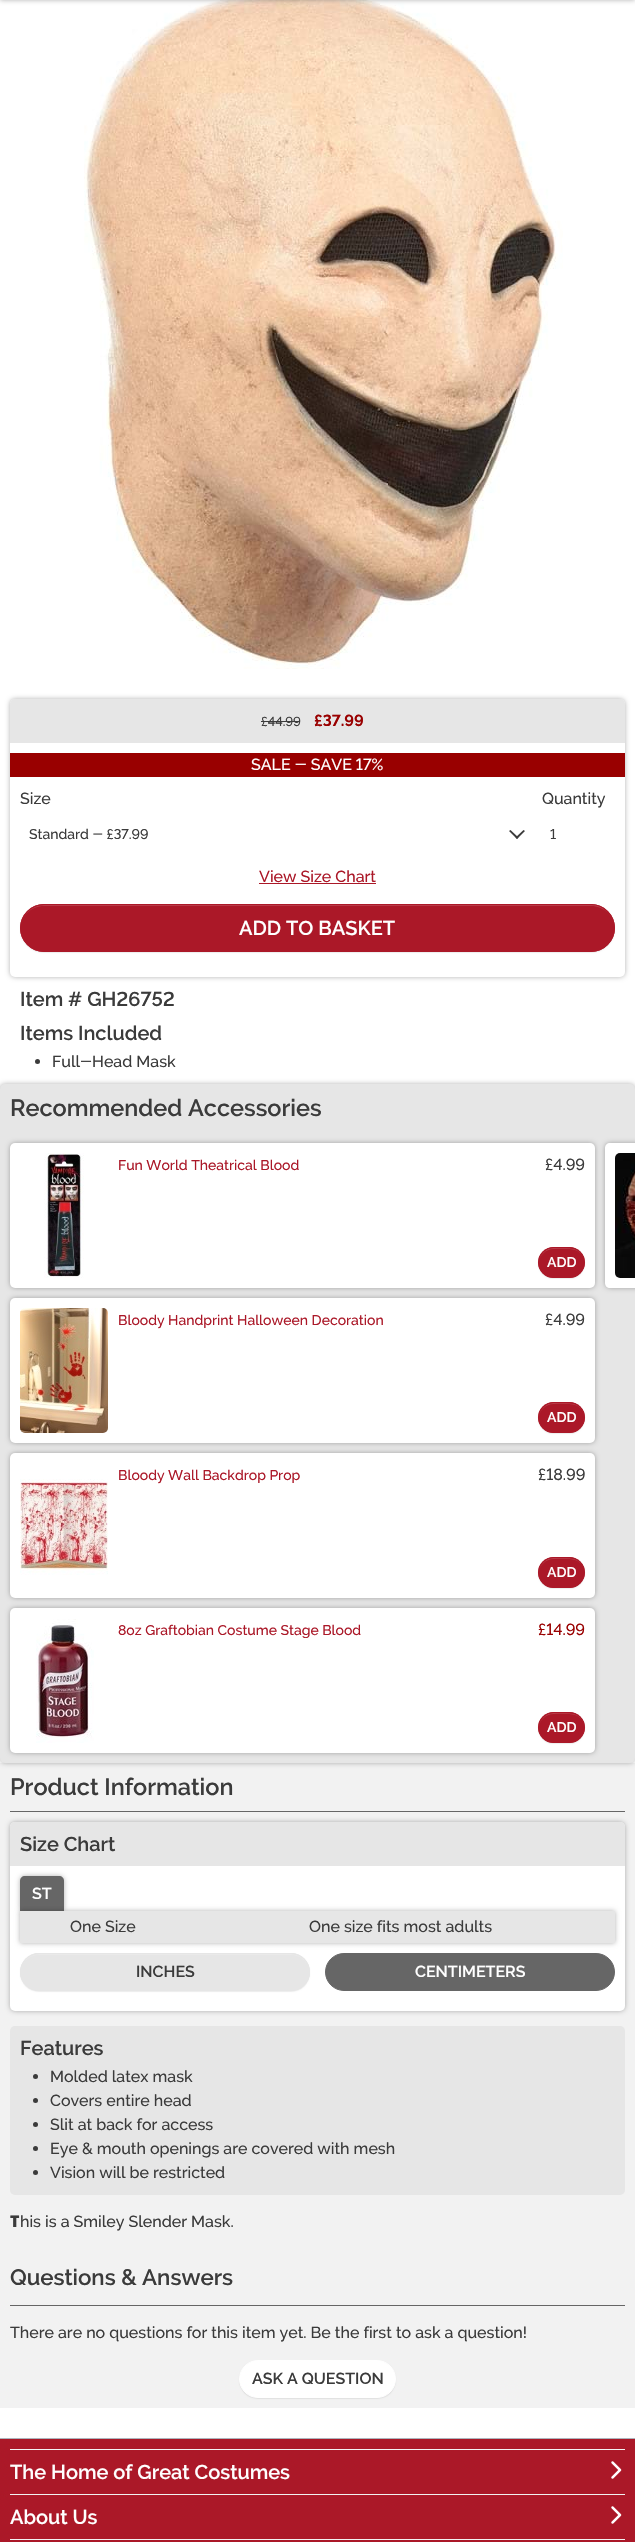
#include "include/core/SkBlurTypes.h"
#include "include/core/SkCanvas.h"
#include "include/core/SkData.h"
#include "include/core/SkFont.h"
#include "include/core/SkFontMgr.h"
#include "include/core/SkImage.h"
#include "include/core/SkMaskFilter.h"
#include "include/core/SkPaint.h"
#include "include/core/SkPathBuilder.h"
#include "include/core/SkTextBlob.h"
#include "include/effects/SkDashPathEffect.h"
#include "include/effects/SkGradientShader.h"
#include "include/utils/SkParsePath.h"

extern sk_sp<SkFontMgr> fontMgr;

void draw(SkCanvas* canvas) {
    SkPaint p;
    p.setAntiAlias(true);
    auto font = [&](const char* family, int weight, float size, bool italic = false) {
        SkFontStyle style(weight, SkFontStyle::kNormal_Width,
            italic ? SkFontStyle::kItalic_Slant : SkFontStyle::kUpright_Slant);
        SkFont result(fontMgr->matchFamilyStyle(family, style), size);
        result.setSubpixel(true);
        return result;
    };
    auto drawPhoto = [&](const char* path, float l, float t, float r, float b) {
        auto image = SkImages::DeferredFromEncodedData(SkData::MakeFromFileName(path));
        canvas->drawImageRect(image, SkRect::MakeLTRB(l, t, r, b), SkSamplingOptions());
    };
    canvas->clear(0xFFFFFFFF);
    drawPhoto("media/1.png", 84, 0, 563, 669);
    p.setColor(0x4D000000);
    p.setMaskFilter(SkMaskFilter::MakeBlur(kNormal_SkBlurStyle, 2.5f));
    canvas->drawRect(SkRect::MakeLTRB(0, -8, 635, 0), p);
    p.setMaskFilter(nullptr);
    p.setMaskFilter(SkMaskFilter::MakeBlur(kNormal_SkBlurStyle, 2.5f));
    canvas->drawRoundRect(SkRect::MakeLTRB(10, 699, 625, 977), 5, 5, p);
    p.setMaskFilter(nullptr);
    p.setColor(0xFFFFFFFF);
    canvas->drawRoundRect(SkRect::MakeLTRB(10, 699, 625, 977), 5, 5, p);
    p.setColor(0xFFE6E6E6);
    canvas->drawPath(SkPathBuilder().moveTo(15, 699).lineTo(620, 699).cubicTo(623, 699, 625, 701, 625, 704).lineTo(625, 743).lineTo(10, 743).lineTo(10, 704).cubicTo(10, 701, 12, 699, 15, 699).close().detach(), p);
    auto font1 = font("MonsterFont", 500, 13);
    p.setColor(0xFF3B3B3B);
    canvas->drawString("£44.99", 261, 726, font1, p);
    canvas->drawRect(SkRect::MakeLTRB(261, 721, 300, 722), p);
    auto font2 = font("MonsterFont", 700, 16);
    p.setColor(0xFF990000);
    canvas->drawString("£37.99", 314, 726, font2, p);
    canvas->drawRect(SkRect::MakeLTRB(10, 753, 625, 777), p);
    auto font3 = font("MonsterFont", 500, 16);
    p.setColor(0xFFFFFFFF);
    canvas->drawString("SALE - SAVE 17%", 251, 770, font3, p);
    p.setColor(0xFF3B3B3B);
    canvas->drawString("Size", 20, 804, font3, p);
    auto font4 = font("MonsterFont", 500, 14);
    canvas->drawString("Standard - £37.99", 29, 839, font4, p);
    canvas->drawPath(SkPathBuilder().moveTo(525, 831).lineTo(517, 839).lineTo(515.5f, 837.5f).lineTo(523.5f, 830).close().detach(), p);
    canvas->drawPath(SkPathBuilder().moveTo(518.5f, 837.5f).lineTo(517, 839).lineTo(509, 831).lineTo(510.5f, 830).close().detach(), p);
    canvas->drawString("Quantity", 542, 804, font3, p);
    canvas->drawString("1", 550, 839, font4, p);
    p.setColor(0xFFAB1828);
    canvas->drawString("View Size Chart", 259, 882, font3, p);
    canvas->drawRect(SkRect::MakeLTRB(259, 883, 376, 884), p);
    p.setColor(0x12000000);
    p.setMaskFilter(SkMaskFilter::MakeBlur(kNormal_SkBlurStyle, 0.5f));
    canvas->drawRoundRect(SkRect::MakeLTRB(20, 905, 615, 953), 24, 24, p);
    p.setMaskFilter(nullptr);
    p.setColor(0xFFAB1828);
    canvas->drawRoundRect(SkRect::MakeLTRB(20, 904, 615, 952), 24, 24, p);
    p.setColor(0xFFB83B48);
    canvas->drawPath(SkPathBuilder().moveTo(44, 906).lineTo(591, 906).cubicTo(604, 906, 614, 916, 614, 928).cubicTo(614, 918, 606, 908, 596, 905).lineTo(591, 905).lineTo(44, 905).cubicTo(31, 905, 21, 916, 21, 928).cubicTo(21, 916, 31, 906, 44, 906).close().detach(), p);
    p.setStyle(SkPaint::kStroke_Style);
    p.setStrokeWidth(1);
    p.setColor(0xFFAB1828);
    canvas->drawRoundRect(SkRect::MakeLTRB(20.5f, 904.5f, 614.5f, 951.5f), 23.5f, 23.5f, p);
    auto font5 = font("MonsterFont", 600, 20);
    p.setStyle(SkPaint::kFill_Style);
    p.setColor(0xFFFFFFFF);
    canvas->drawString("ADD TO BASKET", 239, 935, font5, p);
    p.setColor(0xFF3B3B3B);
    canvas->drawString("Item # GH26752", 20, 1006, font5, p);
    canvas->drawString("Items Included", 20, 1040, font5, p);
    canvas->drawCircle(37.5f, 1061.5f, 2.5f, p);
    canvas->drawString("Full-Head Mask", 52, 1067, font3, p);
    p.setColor(0xFFF2F2F2);
    canvas->drawRect(SkRect::MakeLTRB(0, 1763, 635, 2408), p);
    p.setColor(0x4D000000);
    p.setMaskFilter(SkMaskFilter::MakeBlur(kNormal_SkBlurStyle, 2.5f));
    canvas->drawRoundRect(SkRect::MakeLTRB(0, 1084, 635, 1763), 5, 5, p);
    p.setMaskFilter(nullptr);
    p.setColor(0xFFE6E6E6);
    canvas->drawRoundRect(SkRect::MakeLTRB(0, 1084, 635, 1763), 5, 5, p);
    auto font6 = font("MonsterFont", 600, 23.5f);
    p.setColor(0xFF3B3B3B);
    canvas->drawString("Recommended Accessories", 10, 1116, font6, p);
    p.setColor(0x4D000000);
    p.setMaskFilter(SkMaskFilter::MakeBlur(kNormal_SkBlurStyle, 2.5f));
    canvas->drawRoundRect(SkRect::MakeLTRB(10, 1143, 595, 1288), 5, 5, p);
    p.setMaskFilter(nullptr);
    p.setColor(0xFFFFFFFF);
    canvas->drawRoundRect(SkRect::MakeLTRB(10, 1143, 595, 1288), 5, 5, p);
    drawPhoto("media/2.png", 44, 1153, 84, 1278);
    p.setColor(0xFFAB1828);
    canvas->drawString("Fun World Theatrical Blood", 118, 1170, font4, p);
    p.setColor(0xFF3B3B3B);
    canvas->drawString("£4.99", 545, 1170, font3, p);
    p.setColor(0x12000000);
    p.setMaskFilter(SkMaskFilter::MakeBlur(kNormal_SkBlurStyle, 0.5f));
    canvas->drawRoundRect(SkRect::MakeLTRB(538, 1248, 585, 1279), 15.5f, 15.5f, p);
    p.setMaskFilter(nullptr);
    p.setColor(0xFFAB1828);
    canvas->drawRoundRect(SkRect::MakeLTRB(538, 1247, 585, 1278), 15.5f, 15.5f, p);
    p.setColor(0xFFB83B48);
    canvas->drawPath(SkPathBuilder().moveTo(554, 1249).cubicTo(565, 1249, 582, 1246, 584, 1261).cubicTo(582, 1248, 571, 1248, 562, 1248).lineTo(551, 1248).cubicTo(544, 1250, 539, 1256, 539, 1263).cubicTo(539, 1256, 545, 1249, 554, 1249).close().detach(), p);
    p.setStyle(SkPaint::kStroke_Style);
    p.setColor(0xFFAB1828);
    canvas->drawRoundRect(SkRect::MakeLTRB(538.5f, 1247.5f, 584.5f, 1277.5f), 15, 15, p);
    auto font7 = font("MonsterFont", 600, 14);
    p.setStyle(SkPaint::kFill_Style);
    p.setColor(0xFFFFFFFF);
    canvas->drawString("ADD", 547, 1267, font7, p);
    p.setColor(0x4D000000);
    p.setMaskFilter(SkMaskFilter::MakeBlur(kNormal_SkBlurStyle, 2.5f));
    canvas->drawRoundRect(SkRect::MakeLTRB(605, 1143, 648, 1288), 5, 5, p);
    p.setMaskFilter(nullptr);
    p.setColor(0xFFFFFFFF);
    canvas->drawPath(SkPathBuilder().moveTo(610, 1143).lineTo(635, 1143).lineTo(635, 1288).lineTo(610, 1288).cubicTo(607, 1288, 605, 1286, 605, 1283).lineTo(605, 1148).cubicTo(605, 1145, 607, 1143, 610, 1143).close().detach(), p);
    drawPhoto("media/3.png", 615, 1153, 635, 1278);
    p.setColor(0x4D000000);
    p.setMaskFilter(SkMaskFilter::MakeBlur(kNormal_SkBlurStyle, 2.5f));
    canvas->drawRoundRect(SkRect::MakeLTRB(10, 1298, 595, 1443), 5, 5, p);
    p.setMaskFilter(nullptr);
    p.setColor(0xFFFFFFFF);
    canvas->drawRoundRect(SkRect::MakeLTRB(10, 1298, 595, 1443), 5, 5, p);
    drawPhoto("media/4.png", 20, 1308, 108, 1433);
    p.setColor(0xFFAB1828);
    canvas->drawString("Bloody Handprint Halloween Decoration", 118, 1325, font4, p);
    p.setColor(0xFF3B3B3B);
    canvas->drawString("£4.99", 545, 1325, font3, p);
    p.setColor(0x12000000);
    p.setMaskFilter(SkMaskFilter::MakeBlur(kNormal_SkBlurStyle, 0.5f));
    canvas->drawRoundRect(SkRect::MakeLTRB(538, 1403, 585, 1434), 15.5f, 15.5f, p);
    p.setMaskFilter(nullptr);
    p.setColor(0xFFAB1828);
    canvas->drawRoundRect(SkRect::MakeLTRB(538, 1402, 585, 1433), 15.5f, 15.5f, p);
    p.setColor(0xFFB83B48);
    canvas->drawPath(SkPathBuilder().moveTo(554, 1404).cubicTo(565, 1404, 582, 1401, 584, 1416).cubicTo(582, 1403, 571, 1403, 562, 1403).lineTo(551, 1403).cubicTo(544, 1405, 539, 1411, 539, 1418).cubicTo(539, 1411, 545, 1404, 554, 1404).close().detach(), p);
    p.setStyle(SkPaint::kStroke_Style);
    p.setColor(0xFFAB1828);
    canvas->drawRoundRect(SkRect::MakeLTRB(538.5f, 1402.5f, 584.5f, 1432.5f), 15, 15, p);
    p.setStyle(SkPaint::kFill_Style);
    p.setColor(0xFFFFFFFF);
    canvas->drawString("ADD", 547, 1422, font7, p);
    p.setColor(0x4D000000);
    p.setMaskFilter(SkMaskFilter::MakeBlur(kNormal_SkBlurStyle, 2.5f));
    canvas->drawRoundRect(SkRect::MakeLTRB(10, 1453, 595, 1598), 5, 5, p);
    p.setMaskFilter(nullptr);
    p.setColor(0xFFFFFFFF);
    canvas->drawRoundRect(SkRect::MakeLTRB(10, 1453, 595, 1598), 5, 5, p);
    drawPhoto("media/5.png", 20, 1479, 108, 1575);
    p.setColor(0xFFAB1828);
    canvas->drawString("Bloody Wall Backdrop Prop", 118, 1480, font4, p);
    p.setColor(0xFF3B3B3B);
    canvas->drawString("£18.99", 538, 1480, font3, p);
    p.setColor(0x12000000);
    p.setMaskFilter(SkMaskFilter::MakeBlur(kNormal_SkBlurStyle, 0.5f));
    canvas->drawRoundRect(SkRect::MakeLTRB(538, 1558, 585, 1589), 15.5f, 15.5f, p);
    p.setMaskFilter(nullptr);
    p.setColor(0xFFAB1828);
    canvas->drawRoundRect(SkRect::MakeLTRB(538, 1557, 585, 1588), 15.5f, 15.5f, p);
    p.setColor(0xFFB83B48);
    canvas->drawPath(SkPathBuilder().moveTo(554, 1559).cubicTo(565, 1559, 582, 1556, 584, 1571).cubicTo(582, 1558, 571, 1558, 562, 1558).lineTo(551, 1558).cubicTo(544, 1560, 539, 1566, 539, 1573).cubicTo(539, 1566, 545, 1559, 554, 1559).close().detach(), p);
    p.setStyle(SkPaint::kStroke_Style);
    p.setColor(0xFFAB1828);
    canvas->drawRoundRect(SkRect::MakeLTRB(538.5f, 1557.5f, 584.5f, 1587.5f), 15, 15, p);
    p.setStyle(SkPaint::kFill_Style);
    p.setColor(0xFFFFFFFF);
    canvas->drawString("ADD", 547, 1577, font7, p);
    p.setColor(0x4D000000);
    p.setMaskFilter(SkMaskFilter::MakeBlur(kNormal_SkBlurStyle, 2.5f));
    canvas->drawRoundRect(SkRect::MakeLTRB(10, 1608, 595, 1753), 5, 5, p);
    p.setMaskFilter(nullptr);
    p.setColor(0xFFFFFFFF);
    canvas->drawRoundRect(SkRect::MakeLTRB(10, 1608, 595, 1753), 5, 5, p);
    drawPhoto("media/6.png", 36, 1619, 94, 1743);
    p.setColor(0xFFAB1828);
    canvas->drawString("8oz Graftobian Costume Stage Blood", 118, 1635, font4, p);
    p.setColor(0xFF990000);
    canvas->drawString("£14.99", 538, 1635, font3, p);
    p.setColor(0x12000000);
    p.setMaskFilter(SkMaskFilter::MakeBlur(kNormal_SkBlurStyle, 0.5f));
    canvas->drawRoundRect(SkRect::MakeLTRB(538, 1713, 585, 1744), 15.5f, 15.5f, p);
    p.setMaskFilter(nullptr);
    p.setColor(0xFFAB1828);
    canvas->drawRoundRect(SkRect::MakeLTRB(538, 1712, 585, 1743), 15.5f, 15.5f, p);
    p.setColor(0xFFB83B48);
    canvas->drawPath(SkPathBuilder().moveTo(554, 1714).cubicTo(565, 1714, 582, 1711, 584, 1726).cubicTo(582, 1713, 571, 1713, 562, 1713).lineTo(551, 1713).cubicTo(544, 1715, 539, 1721, 539, 1728).cubicTo(539, 1721, 545, 1714, 554, 1714).close().detach(), p);
    p.setStyle(SkPaint::kStroke_Style);
    p.setColor(0xFFAB1828);
    canvas->drawRoundRect(SkRect::MakeLTRB(538.5f, 1712.5f, 584.5f, 1742.5f), 15, 15, p);
    p.setStyle(SkPaint::kFill_Style);
    p.setColor(0xFFFFFFFF);
    canvas->drawString("ADD", 547, 1732, font7, p);
    p.setColor(0xFF3B3B3B);
    canvas->drawString("Product Information", 10, 1795, font6, p);
    p.setColor(0xFF666666);
    canvas->drawRect(SkRect::MakeLTRB(10, 1811, 625, 1812), p);
    p.setColor(0x4D000000);
    p.setMaskFilter(SkMaskFilter::MakeBlur(kNormal_SkBlurStyle, 2.5f));
    canvas->drawRoundRect(SkRect::MakeLTRB(10, 1822, 625, 2011), 5, 5, p);
    p.setMaskFilter(nullptr);
    p.setColor(0xFFFFFFFF);
    canvas->drawRoundRect(SkRect::MakeLTRB(10, 1822, 625, 2011), 5, 5, p);
    p.setColor(0xFFE6E6E6);
    canvas->drawPath(SkPathBuilder().moveTo(15, 1822).lineTo(620, 1822).cubicTo(623, 1822, 625, 1824, 625, 1827).lineTo(625, 1866).lineTo(10, 1866).lineTo(10, 1827).cubicTo(10, 1824, 12, 1822, 15, 1822).close().detach(), p);
    p.setColor(0xFF3B3B3B);
    canvas->drawString("Size Chart", 20, 1851, font5, p);
    p.setColor(0x4D000000);
    p.setMaskFilter(SkMaskFilter::MakeBlur(kNormal_SkBlurStyle, 2.5f));
    canvas->drawRoundRect(SkRect::MakeLTRB(20, 1876, 64, 1912), 5, 5, p);
    p.setMaskFilter(nullptr);
    p.setColor(0xFF666666);
    canvas->drawPath(SkPathBuilder().moveTo(25, 1876).lineTo(59, 1876).cubicTo(62, 1876, 64, 1878, 64, 1881).lineTo(64, 1912).lineTo(20, 1912).lineTo(20, 1881).cubicTo(20, 1878, 22, 1876, 25, 1876).close().detach(), p);
    auto font8 = font("MonsterFont", 600, 16);
    p.setColor(0xFFFFFFFF);
    canvas->drawString("ST", 32, 1899, font8, p);
    p.setColor(0x4D000000);
    p.setMaskFilter(SkMaskFilter::MakeBlur(kNormal_SkBlurStyle, 2.5f));
    canvas->drawRect(SkRect::MakeLTRB(20, 1911, 615, 1943), p);
    p.setMaskFilter(nullptr);
    p.setColor(0xFFE6E6E6);
    canvas->drawRect(SkRect::MakeLTRB(20, 1911, 615, 1943), p);
    p.setColor(0xFF3B3B3B);
    canvas->drawString("One Size", 70, 1932, font3, p);
    canvas->drawString("One size fits most adults", 309, 1932, font3, p);
    p.setColor(0x12000000);
    p.setMaskFilter(SkMaskFilter::MakeBlur(kNormal_SkBlurStyle, 0.5f));
    canvas->drawRoundRect(SkRect::MakeLTRB(20, 1954, 310, 1992), 19, 19, p);
    p.setMaskFilter(nullptr);
    p.setColor(0xFFE6E6E6);
    canvas->drawRoundRect(SkRect::MakeLTRB(20, 1953, 310, 1991), 19, 19, p);
    p.setColor(0xFFEAEAEA);
    canvas->drawPath(SkPathBuilder().moveTo(39, 1955).lineTo(291, 1955).cubicTo(301, 1955, 309, 1963, 309, 1972).cubicTo(309, 1962, 301, 1954, 291, 1954).lineTo(39, 1954).cubicTo(29, 1954, 21, 1962, 21, 1972).cubicTo(21, 1963, 29, 1955, 39, 1955).close().detach(), p);
    p.setStyle(SkPaint::kStroke_Style);
    p.setColor(0xFFE6E6E6);
    canvas->drawRoundRect(SkRect::MakeLTRB(20.5f, 1953.5f, 309.5f, 1990.5f), 18.5f, 18.5f, p);
    p.setStyle(SkPaint::kFill_Style);
    p.setColor(0xFF3B3B3B);
    canvas->drawString("INCHES", 136, 1977, font8, p);
    p.setColor(0xFF666666);
    canvas->drawRoundRect(SkRect::MakeLTRB(325.5f, 1953.5f, 614.5f, 1990.5f), 18.5f, 18.5f, p);
    p.setStyle(SkPaint::kStroke_Style);
    canvas->drawRoundRect(SkRect::MakeLTRB(325.5f, 1953.5f, 614.5f, 1990.5f), 18.5f, 18.5f, p);
    p.setStyle(SkPaint::kFill_Style);
    p.setColor(0xFFFFFFFF);
    canvas->drawString("CENTIMETERS", 415, 1977, font8, p);
    p.setColor(0xFFE6E6E6);
    canvas->drawRoundRect(SkRect::MakeLTRB(10, 2026, 625, 2195), 5, 5, p);
    p.setColor(0xFF3B3B3B);
    canvas->drawString("Features", 20, 2055, font5, p);
    canvas->drawCircle(35.5f, 2076.5f, 2.5f, p);
    canvas->drawString("Molded latex mask", 50, 2082, font3, p);
    canvas->drawCircle(35.5f, 2100.5f, 2.5f, p);
    canvas->drawString("Covers entire head", 50, 2106, font3, p);
    canvas->drawCircle(35.5f, 2124.5f, 2.5f, p);
    canvas->drawString("Slit at back for access", 50, 2130, font3, p);
    canvas->drawCircle(35.5f, 2148.5f, 2.5f, p);
    canvas->drawString("Eye & mouth openings are covered with mesh", 50, 2154, font3, p);
    canvas->drawCircle(35.5f, 2172.5f, 2.5f, p);
    canvas->drawString("Vision will be restricted", 50, 2178, font3, p);
    auto font9 = font("Noto Sans", 900, 16);
    canvas->drawString("T", 10, 2227, font9, p);
    canvas->drawString("his is a Smiley Slender Mask.", 20, 2227, font3, p);
    auto font10 = font("MonsterFont", 600, 22.25f);
    canvas->drawString("Questions & Answers", 10, 2285, font10, p);
    p.setColor(0xFF666666);
    canvas->drawRect(SkRect::MakeLTRB(10, 2305, 625, 2306), p);
    p.setColor(0xFF3B3B3B);
    canvas->drawString("There are no questions for this item yet. Be the first to ask a question!", 10, 2338, font3, p);
    p.setColor(0x12000000);
    p.setMaskFilter(SkMaskFilter::MakeBlur(kNormal_SkBlurStyle, 0.5f));
    canvas->drawRoundRect(SkRect::MakeLTRB(239, 2361, 396, 2399), 19, 19, p);
    p.setMaskFilter(nullptr);
    p.setColor(0xFFFFFFFF);
    canvas->drawRoundRect(SkRect::MakeLTRB(239.5f, 2360.5f, 395.5f, 2397.5f), 18.5f, 18.5f, p);
    p.setStyle(SkPaint::kStroke_Style);
    canvas->drawRoundRect(SkRect::MakeLTRB(239.5f, 2360.5f, 395.5f, 2397.5f), 18.5f, 18.5f, p);
    p.setStyle(SkPaint::kFill_Style);
    p.setColor(0xFF3B3B3B);
    canvas->drawString("ASK A QUESTION", 252, 2384, font8, p);
    {
        const struct { float l, t, r, b; SkColor color; } items[] = {
            {0, 2439, 635, 2542, 0xFFAB1828},
            {0, 2438, 635, 2439, 0xFFADB5BD},
            {10, 2449, 625, 2450, 0xFFF2F2F2},
        };
        for (auto [l, t, r, b, color] : items) {
            p.setColor(color);
            canvas->drawRect(SkRect::MakeLTRB(l, t, r, b), p);
        }
    }
    p.setColor(0xFFFFFFFF);
    canvas->drawString("The Home of Great Costumes", 10, 2479, font5, p);
    drawPhoto("media/7.png", 611, 2461, 622, 2479);
    p.setColor(0xFFF2F2F2);
    canvas->drawRect(SkRect::MakeLTRB(10, 2494, 625, 2495), p);
    p.setColor(0xFFFFFFFF);
    canvas->drawString("About Us", 10, 2524, font5, p);
    drawPhoto("media/7.png", 611, 2506, 622, 2524);
    p.setColor(0xFFF2F2F2);
    canvas->drawRect(SkRect::MakeLTRB(10, 2539, 625, 2540), p);
}
